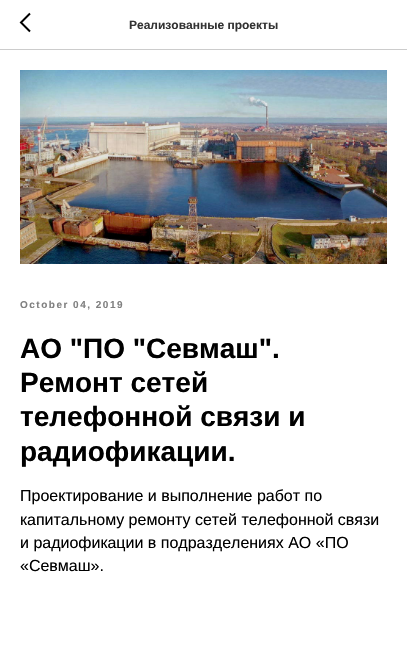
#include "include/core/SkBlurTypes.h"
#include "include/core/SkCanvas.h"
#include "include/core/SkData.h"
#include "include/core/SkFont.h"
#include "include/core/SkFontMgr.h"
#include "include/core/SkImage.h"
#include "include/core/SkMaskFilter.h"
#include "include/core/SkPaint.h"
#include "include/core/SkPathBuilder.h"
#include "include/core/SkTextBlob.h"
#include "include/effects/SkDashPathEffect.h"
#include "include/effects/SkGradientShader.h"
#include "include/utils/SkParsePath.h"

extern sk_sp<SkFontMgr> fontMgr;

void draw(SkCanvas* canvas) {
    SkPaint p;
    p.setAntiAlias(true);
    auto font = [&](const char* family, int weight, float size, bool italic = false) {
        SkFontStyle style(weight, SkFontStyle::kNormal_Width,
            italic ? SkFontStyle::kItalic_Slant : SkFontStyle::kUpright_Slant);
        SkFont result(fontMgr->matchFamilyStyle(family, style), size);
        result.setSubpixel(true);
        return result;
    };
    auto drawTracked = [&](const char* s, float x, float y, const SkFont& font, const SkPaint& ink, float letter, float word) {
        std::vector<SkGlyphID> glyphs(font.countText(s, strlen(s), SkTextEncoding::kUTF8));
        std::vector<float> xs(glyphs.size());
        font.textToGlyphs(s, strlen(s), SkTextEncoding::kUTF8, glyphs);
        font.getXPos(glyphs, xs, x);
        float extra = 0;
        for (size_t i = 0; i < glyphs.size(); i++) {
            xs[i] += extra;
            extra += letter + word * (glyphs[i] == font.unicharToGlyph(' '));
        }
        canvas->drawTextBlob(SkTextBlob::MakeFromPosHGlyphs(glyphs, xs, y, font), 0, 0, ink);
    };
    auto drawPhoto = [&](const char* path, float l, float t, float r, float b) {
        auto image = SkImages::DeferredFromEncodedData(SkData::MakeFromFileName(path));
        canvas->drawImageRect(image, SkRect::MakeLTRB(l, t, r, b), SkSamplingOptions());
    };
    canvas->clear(0xFFFFFFFF);
    p.setColor(0xFFCCCCCC);
    canvas->drawRect(SkRect::MakeLTRB(0, 49, 407, 50), p);
    p.setStyle(SkPaint::kStroke_Style);
    p.setStrokeWidth(2);
    p.setColor(0xFF000000);
    canvas->drawPath(SkPathBuilder().moveTo(30, 31.5f).lineTo(21, 22.5f).lineTo(30, 13.5f).detach(), p);
    auto font1 = font("Liberation Sans", 700, 12);
    p.setStyle(SkPaint::kFill_Style);
    p.setColor(0xFF333333);
    canvas->drawString("Реализованные проекты", 129, 29, font1, p);
    drawPhoto("media/1.png", 20, 70, 387, 264);
    auto font2 = font("Liberation Sans", 700, 10);
    p.setColor(0xFF808080);
    drawTracked("October 04, 2019", 20, 308, font2, p, 1.5f, 0);
    auto font3 = font("Liberation Sans", 700, 28);
    p.setColor(0xFF000000);
    {
        const struct { const char* s; float x, y; } items[] = {
            {"АО \"ПО \"Севмаш\".", 20, 358},
            {"Ремонт сетей", 20, 392},
            {"телефонной связи и", 20, 426},
            {"радиофикации.", 20, 461},
        };
        for (auto [s, x, y] : items) {
            canvas->drawString(s, x, y, font3, p);
        }
    }
    auto font4 = font("Liberation Sans", 400, 16);
    {
        const struct { const char* s; float x, y; } items[] = {
            {"Проектирование и выполнение работ по", 20, 501},
            {"капитальному ремонту сетей телефонной связи", 20, 525},
            {"и радиофикации в подразделениях АО «ПО", 20, 548},
            {"«Севмаш».", 20, 571},
        };
        for (auto [s, x, y] : items) {
            canvas->drawString(s, x, y, font4, p);
        }
    }
}
